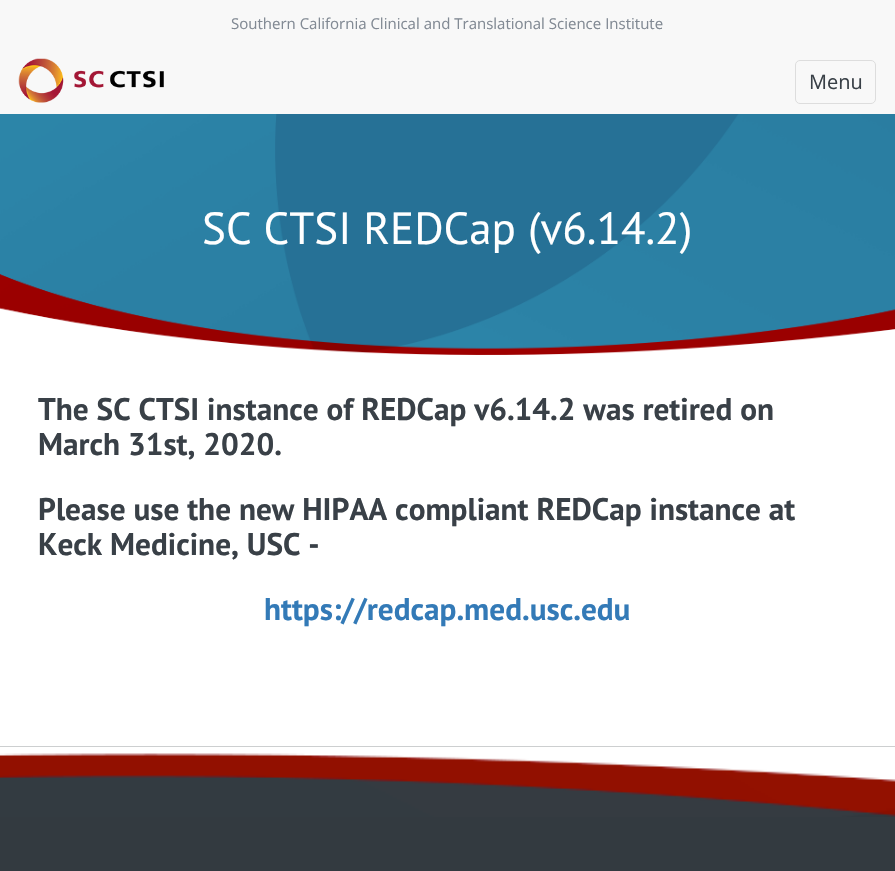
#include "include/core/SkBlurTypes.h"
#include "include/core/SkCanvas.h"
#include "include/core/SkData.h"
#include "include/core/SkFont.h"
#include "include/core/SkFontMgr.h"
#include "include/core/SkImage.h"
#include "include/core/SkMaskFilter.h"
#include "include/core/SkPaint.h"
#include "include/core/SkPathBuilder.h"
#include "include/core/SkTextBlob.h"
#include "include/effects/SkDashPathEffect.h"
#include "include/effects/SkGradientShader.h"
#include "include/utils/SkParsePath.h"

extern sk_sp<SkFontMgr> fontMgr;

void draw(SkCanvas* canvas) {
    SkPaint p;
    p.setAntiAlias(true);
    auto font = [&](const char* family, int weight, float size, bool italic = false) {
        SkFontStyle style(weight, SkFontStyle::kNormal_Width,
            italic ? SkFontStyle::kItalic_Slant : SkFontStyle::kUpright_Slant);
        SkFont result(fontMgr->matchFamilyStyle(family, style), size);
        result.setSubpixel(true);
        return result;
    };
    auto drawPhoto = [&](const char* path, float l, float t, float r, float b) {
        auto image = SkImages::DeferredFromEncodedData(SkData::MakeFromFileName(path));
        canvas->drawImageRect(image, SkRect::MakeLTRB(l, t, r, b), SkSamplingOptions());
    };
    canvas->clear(0xFFFFFFFF);
    p.setColor(0xFFF8F8F8);
    canvas->drawRect(SkRect::MakeLTRB(0, 0, 895, 114), p);
    auto font1 = font("Open Sans", 400, 15);
    p.setColor(0xFF828A94);
    canvas->drawString("Southern California Clinical and Translational Science Institute", 231, 29, font1, p);
    drawPhoto("media/1.png", 18, 58, 164, 103);
    p.setStyle(SkPaint::kStroke_Style);
    p.setStrokeWidth(1);
    p.setColor(0xFFDDDDDD);
    canvas->drawRoundRect(SkRect::MakeLTRB(795.5f, 60.5f, 875.5f, 103.5f), 4.5f, 4.5f, p);
    auto font2 = font("Open Sans", 400, 20);
    p.setStyle(SkPaint::kFill_Style);
    p.setColor(0xFF394047);
    canvas->drawString("Menu", 809, 89, font2, p);
    drawPhoto("media/2.png", 0, 114, 895, 355);
    auto font3 = font("PT Sans", 400, 45);
    p.setColor(0xFFFFFFFF);
    canvas->drawString("SC CTSI REDCap (v6.14.2)", 202, 244, font3, p);
    auto font4 = font("PT Sans", 700, 31.25f);
    p.setColor(0xFF394047);
    {
        const struct { const char* s; float x, y; } items[] = {
            {"The SC CTSI instance of REDCap v6.14.2 was retired on", 38, 420},
            {"March 31st, 2020.", 38, 455},
            {"Please use the new HIPAA compliant REDCap instance at", 38, 520},
            {"Keck Medicine, USC -", 38, 555},
        };
        for (auto [s, x, y] : items) {
            canvas->drawString(s, x, y, font4, p);
        }
    }
    p.setColor(0xFF337AB7);
    canvas->drawString("https://redcap.med.usc.edu", 264, 620, font4, p);
    p.setColor(0xFF333A40);
    canvas->drawRect(SkRect::MakeLTRB(0, 746, 895, 871), p);
    drawPhoto("media/3.png", 0, 746, 895, 817);
}
